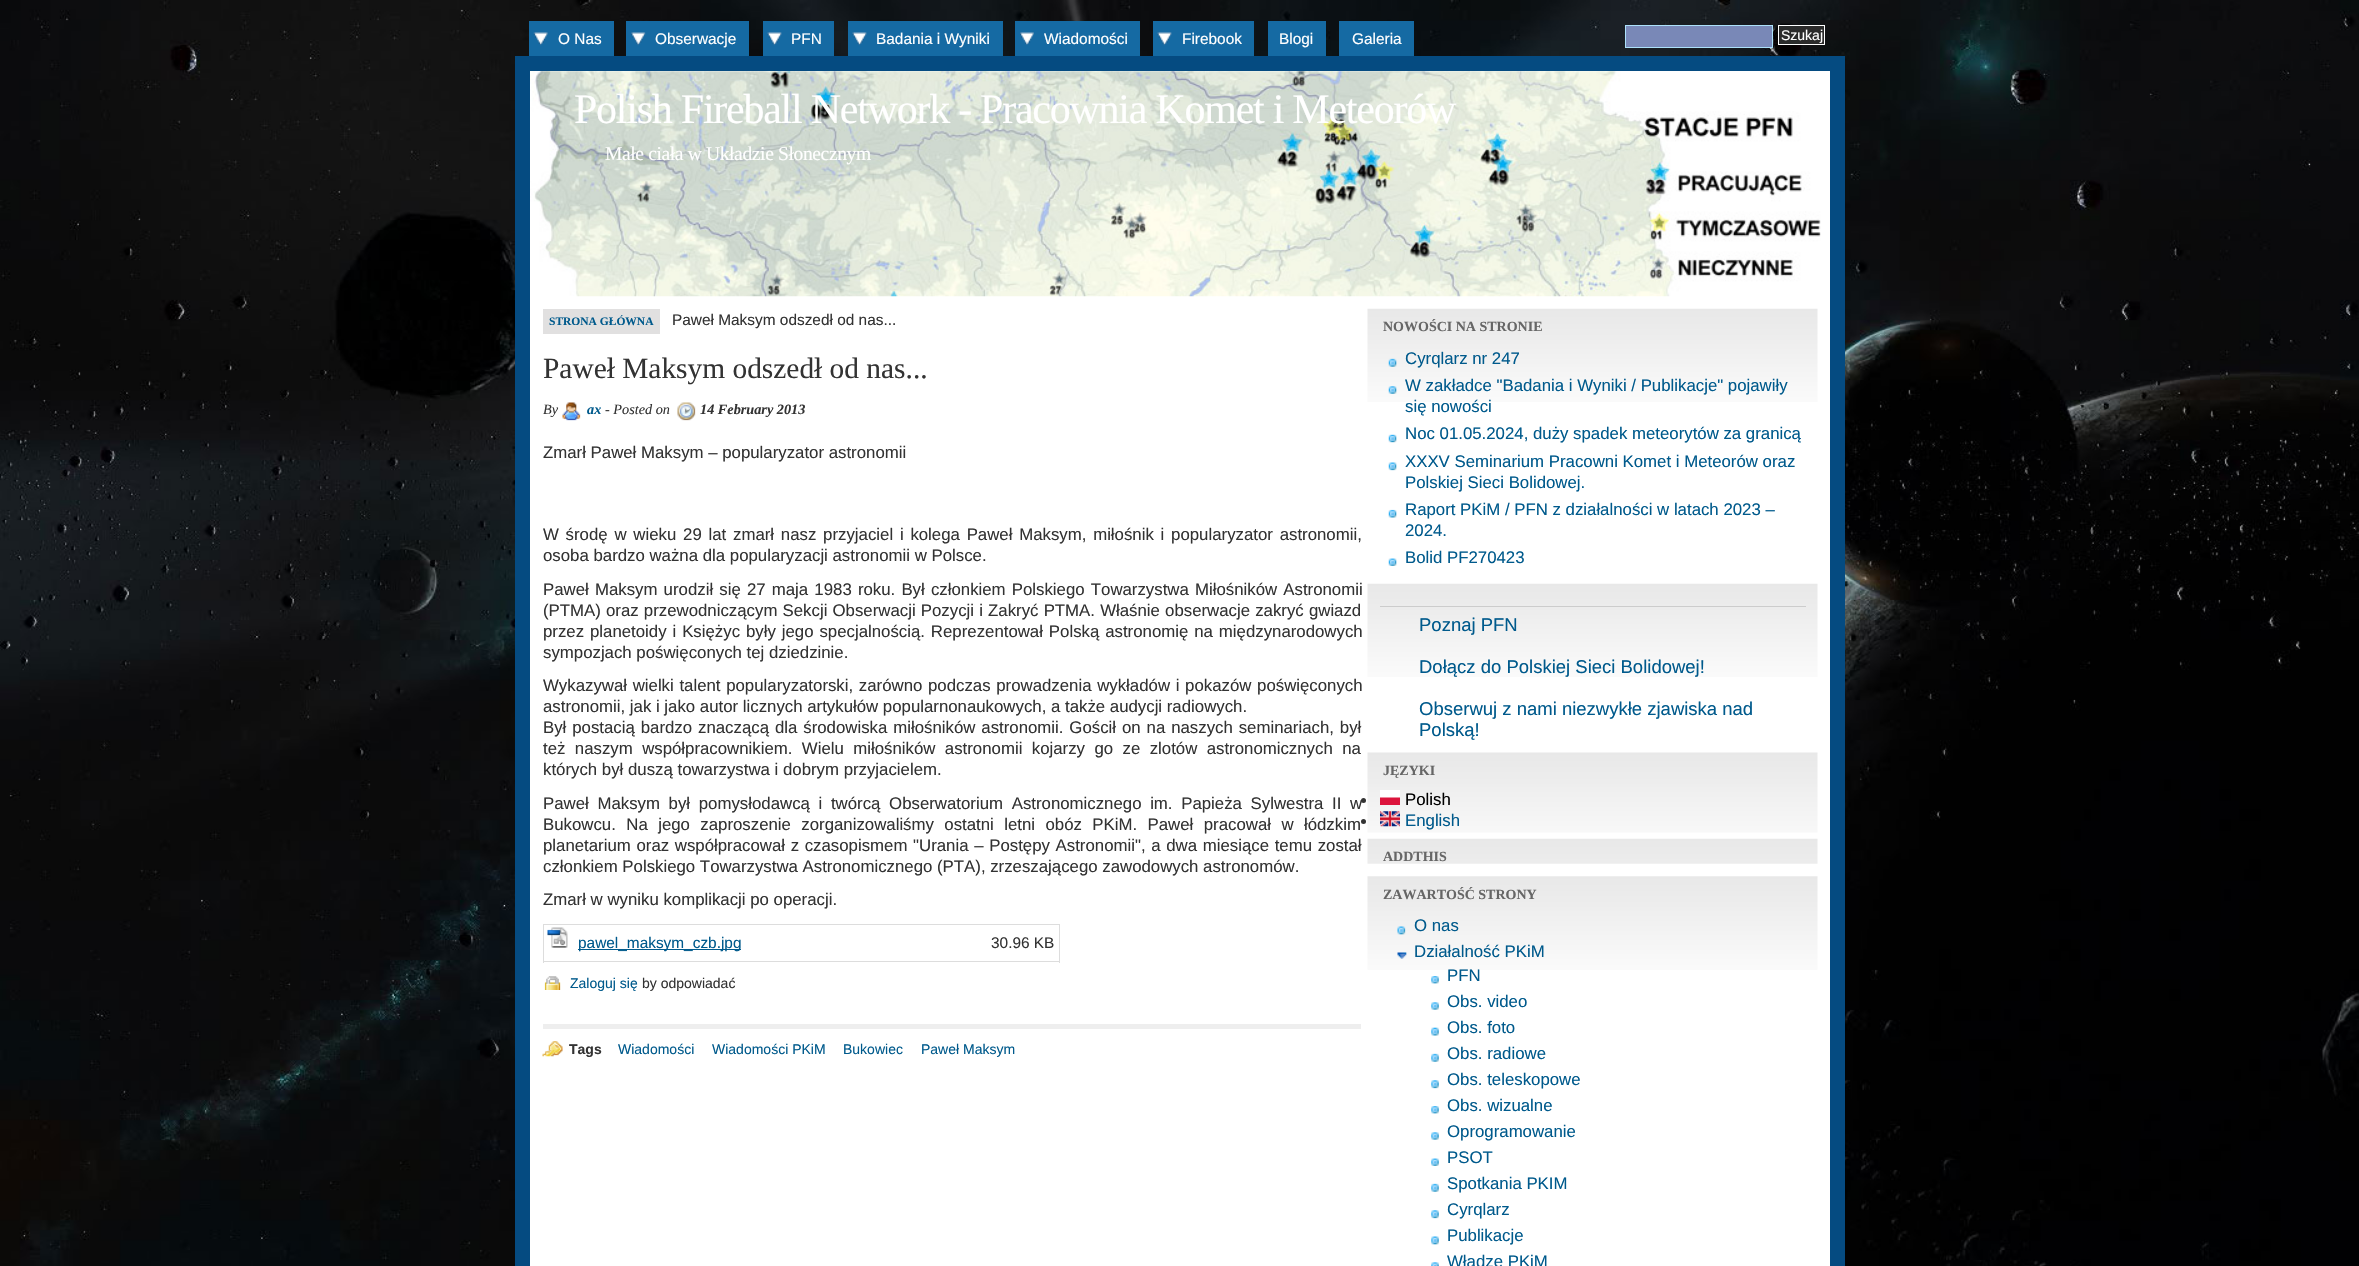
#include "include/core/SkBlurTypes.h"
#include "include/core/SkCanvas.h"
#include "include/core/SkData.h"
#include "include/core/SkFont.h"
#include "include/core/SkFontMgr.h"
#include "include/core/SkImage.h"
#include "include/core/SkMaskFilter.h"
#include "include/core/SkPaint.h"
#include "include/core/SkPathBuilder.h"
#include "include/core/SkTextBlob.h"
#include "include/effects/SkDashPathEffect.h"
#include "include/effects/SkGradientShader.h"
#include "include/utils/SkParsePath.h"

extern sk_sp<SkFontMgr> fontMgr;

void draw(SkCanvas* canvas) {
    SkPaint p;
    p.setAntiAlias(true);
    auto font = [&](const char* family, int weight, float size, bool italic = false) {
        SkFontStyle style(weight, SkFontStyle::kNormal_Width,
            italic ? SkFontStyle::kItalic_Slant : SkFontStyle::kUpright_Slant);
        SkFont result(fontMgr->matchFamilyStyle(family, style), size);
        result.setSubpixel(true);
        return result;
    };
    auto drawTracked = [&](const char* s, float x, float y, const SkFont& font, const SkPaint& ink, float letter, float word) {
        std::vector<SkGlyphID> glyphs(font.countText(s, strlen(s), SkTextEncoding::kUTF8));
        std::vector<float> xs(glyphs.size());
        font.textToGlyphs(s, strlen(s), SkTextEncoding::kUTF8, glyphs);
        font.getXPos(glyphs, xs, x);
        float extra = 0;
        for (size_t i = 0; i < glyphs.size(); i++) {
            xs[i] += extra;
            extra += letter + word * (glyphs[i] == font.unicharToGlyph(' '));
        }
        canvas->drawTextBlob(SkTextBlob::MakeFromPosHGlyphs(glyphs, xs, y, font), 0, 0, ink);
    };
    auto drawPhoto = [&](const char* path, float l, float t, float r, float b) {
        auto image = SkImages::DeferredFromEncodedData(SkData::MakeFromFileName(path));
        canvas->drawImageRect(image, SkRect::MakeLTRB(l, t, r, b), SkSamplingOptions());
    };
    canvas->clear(0xFFFFFFFF);
    drawPhoto("media/1.png", 0, 0, 2359, 1266);
    p.setColor(0xFF156AA3);
    canvas->drawRect(SkRect::MakeLTRB(529, 21, 614, 56), p);
    drawPhoto("media/2.png", 533, 32, 548, 46);
    auto font1 = font("Liberation Sans", 400, 15.4f);
    p.setColor(0xFFFFFFFF);
    canvas->drawString("O Nas", 558, 44, font1, p);
    p.setColor(0xFF156AA3);
    canvas->drawRect(SkRect::MakeLTRB(626, 21, 749, 56), p);
    drawPhoto("media/3.png", 631, 32, 646, 46);
    p.setColor(0xFFFFFFFF);
    canvas->drawString("Obserwacje", 655, 44, font1, p);
    p.setColor(0xFF156AA3);
    canvas->drawRect(SkRect::MakeLTRB(763, 21, 834, 56), p);
    drawPhoto("media/4.png", 767, 32, 782, 46);
    p.setColor(0xFFFFFFFF);
    canvas->drawString("PFN", 791, 44, font1, p);
    p.setColor(0xFF156AA3);
    canvas->drawRect(SkRect::MakeLTRB(848, 21, 1003, 56), p);
    drawPhoto("media/4.png", 852, 32, 867, 46);
    p.setColor(0xFFFFFFFF);
    canvas->drawString("Badania i Wyniki", 876, 44, font1, p);
    p.setColor(0xFF156AA3);
    canvas->drawRect(SkRect::MakeLTRB(1015, 21, 1140, 56), p);
    drawPhoto("media/5.png", 1020, 32, 1034, 45);
    p.setColor(0xFFFFFFFF);
    canvas->drawString("Wiadomości", 1044, 44, font1, p);
    p.setColor(0xFF156AA3);
    canvas->drawRect(SkRect::MakeLTRB(1153, 21, 1254, 56), p);
    drawPhoto("media/6.png", 1157, 32, 1172, 46);
    p.setColor(0xFFFFFFFF);
    canvas->drawString("Firebook", 1182, 44, font1, p);
    p.setColor(0xFF156AA3);
    canvas->drawRect(SkRect::MakeLTRB(1268, 21, 1326, 56), p);
    p.setColor(0xFFFFFFFF);
    canvas->drawString("Blogi", 1279, 44, font1, p);
    p.setColor(0xFF156AA3);
    canvas->drawRect(SkRect::MakeLTRB(1339, 21, 1414, 56), p);
    p.setColor(0xFFFFFFFF);
    canvas->drawString("Galeria", 1352, 44, font1, p);
    p.setColor(0xFF7988B7);
    canvas->drawRect(SkRect::MakeLTRB(1625.5f, 25.5f, 1772.5f, 47.5f), p);
    p.setStyle(SkPaint::kStroke_Style);
    p.setStrokeWidth(1);
    p.setColor(0xFFADE1FA);
    canvas->drawRect(SkRect::MakeLTRB(1625.5f, 25.5f, 1772.5f, 47.5f), p);
    p.setStyle(SkPaint::kFill_Style);
    p.setColor(0xFF2B2B2B);
    canvas->drawRect(SkRect::MakeLTRB(1778.5f, 25.5f, 1824.5f, 44.5f), p);
    p.setStyle(SkPaint::kStroke_Style);
    p.setColor(0xFFFFFFFF);
    canvas->drawRect(SkRect::MakeLTRB(1778.5f, 25.5f, 1824.5f, 44.5f), p);
    auto font2 = font("Liberation Sans", 400, 14);
    p.setStyle(SkPaint::kFill_Style);
    canvas->drawString("Szukaj", 1781, 40, font2, p);
    canvas->drawRect(SkRect::MakeLTRB(522.5f, 63.5f, 1837.5f, 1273.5f), p);
    p.setStyle(SkPaint::kStroke_Style);
    p.setStrokeWidth(15);
    p.setColor(0xFF054B81);
    canvas->drawRect(SkRect::MakeLTRB(522.5f, 63.5f, 1837.5f, 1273.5f), p);
    drawPhoto("media/7.png", 530, 71, 1830, 297);
    auto font3 = font("Liberation Serif", 400, 42);
    p.setStyle(SkPaint::kFill_Style);
    p.setColor(0xFFFFFFFF);
    drawTracked("Polish Fireball Network - Pracownia Komet i Meteorów", 574, 123, font3, p, -1.25f, 0);
    auto font4 = font("Liberation Serif", 400, 19.6f);
    drawTracked("Małe ciała w Układzie Słonecznym", 605, 160, font4, p, -0.4f, 0);
    p.setColor(0xFFE1E0E0);
    canvas->drawRect(SkRect::MakeLTRB(543, 309, 660, 334), p);
    auto font5 = font("Liberation Serif", 700, 11.5f);
    p.setColor(0xFF005A8C);
    canvas->drawString("STRONA GŁÓWNA", 549, 325, font5, p);
    p.setColor(0xFF333333);
    canvas->drawString("Paweł Maksym odszedł od nas...", 672, 325, font1, p);
    auto font6 = font("Liberation Serif", 400, 29.4f);
    canvas->drawString("Paweł Maksym odszedł od nas...", 543, 378, font6, p);
    auto font7 = font("Liberation Serif", 400, 14.25f, true);
    canvas->drawString("By", 543, 414, font7, p);
    drawPhoto("media/8.png", 562, 402, 581, 421);
    auto font8 = font("Liberation Serif", 700, 14.25f, true);
    p.setColor(0xFF005A8C);
    canvas->drawString("ax", 587, 414, font8, p);
    p.setColor(0xFF333333);
    canvas->drawString("- Posted on", 605, 414, font7, p);
    drawPhoto("media/9.png", 677, 402, 696, 421);
    canvas->drawString("14 February 2013", 700, 414, font8, p);
    auto font9 = font("Liberation Sans", 400, 16.8f);
    canvas->drawString("Zmarł Paweł Maksym – popularyzator astronomii", 543, 458, font9, p);
    drawTracked("W środę w wieku 29 lat zmarł nasz przyjaciel i kolega Paweł Maksym, miłośnik i popularyzator astronomii,", 543, 540, font9, p, 0, 2.1f);
    canvas->drawString("osoba bardzo ważna dla popularyzacji astronomii w Polsce.", 543, 561, font9, p);
    drawTracked("Paweł Maksym urodził się 27 maja 1983 roku. Był członkiem Polskiego Towarzystwa Miłośników Astronomii", 543, 595, font9, p, 0, 1.5f);
    drawTracked("(PTMA) oraz przewodniczącym Sekcji Obserwacji Pozycji i Zakryć PTMA. Właśnie obserwacje zakryć gwiazd", 543, 616, font9, p, 0, 0.5f);
    drawTracked("przez planetoidy i Księżyc były jego specjalnością. Reprezentował Polską astronomię na międzynarodowych", 543, 637, font9, p, 0, 1.25f);
    canvas->drawString("sympozjach poświęconych tej dziedzinie.", 543, 658, font9, p);
    drawTracked("Wykazywał wielki talent popularyzatorski, zarówno podczas prowadzenia wykładów i pokazów poświęconych", 543, 691, font9, p, 0, 1);
    canvas->drawString("astronomii, jak i jako autor licznych artykułów popularnonaukowych, a także audycji radiowych.", 543, 712, font9, p);
    drawTracked("Był postacią bardzo znaczącą dla środowiska miłośników astronomii. Gościł on na naszych seminariach, był", 543, 733, font9, p, 0, 1.25f);
    drawTracked("też naszym współpracownikiem. Wielu miłośników astronomii kojarzy go ze zlotów astronomicznych na", 543, 754, font9, p, 0, 4.75f);
    canvas->drawString("których był duszą towarzystwa i dobrym przyjacielem.", 543, 775, font9, p);
    drawTracked("Paweł Maksym był pomysłodawcą i twórcą Obserwatorium Astronomicznego im. Papieża Sylwestra II w", 543, 809, font9, p, 0, 4);
    drawTracked("Bukowcu. Na jego zaproszenie zorganizowaliśmy ostatni letni obóz PKiM. Paweł pracował w łódzkim", 543, 830, font9, p, 0, 5.75f);
    drawTracked("planetarium oraz współpracował z czasopismem \"Urania – Postępy Astronomii\", a dwa miesiące temu został", 543, 851, font9, p, 0, 1);
    canvas->drawString("członkiem Polskiego Towarzystwa Astronomicznego (PTA), zrzeszającego zawodowych astronomów.", 543, 872, font9, p);
    canvas->drawString("Zmarł w wyniku komplikacji po operacji.", 543, 905, font9, p);
    {
        const struct { float l, t, r, b; SkColor color; } items[] = {
            {543, 924, 1060, 925, 0xFFDDDDDD},
            {1059, 924, 1060, 963, 0xFFDDDDDD},
            {543, 961, 1060, 962, 0xFFDDDDDD},
            {543, 924, 544, 963, 0xFFDDDDDD},
        };
        for (auto [l, t, r, b, color] : items) {
            p.setColor(color);
            canvas->drawRect(SkRect::MakeLTRB(l, t, r, b), p);
        }
    }
    drawPhoto("media/10.png", 547, 927, 568, 948);
    p.setColor(0xFF005A8C);
    canvas->drawRect(SkRect::MakeLTRB(578, 949, 741, 950), p);
    canvas->drawString("pawel_maksym_czb.jpg", 578, 948, font1, p);
    p.setColor(0xFF333333);
    canvas->drawString("30.96 KB", 991, 948, font1, p);
    drawPhoto("media/11.png", 544, 976, 561, 990);
    p.setColor(0xFF005A8C);
    canvas->drawString("Zaloguj się", 570, 988, font2, p);
    p.setColor(0xFF333333);
    canvas->drawString("by odpowiadać", 642, 988, font2, p);
    p.setColor(0xFFEEEEEE);
    canvas->drawRect(SkRect::MakeLTRB(543, 1024, 1361, 1029), p);
    drawPhoto("media/12.png", 542, 1041, 563, 1057);
    auto font10 = font("Liberation Sans", 700, 14);
    p.setColor(0xFF333333);
    canvas->drawString("Tags", 569, 1054, font10, p);
    p.setColor(0xFF005A8C);
    {
        const struct { const char* s; float x, y; } items[] = {
            {"Wiadomości", 618, 1054},
            {"Wiadomości PKiM", 712, 1054},
            {"Bukowiec", 843, 1054},
            {"Paweł Maksym", 921, 1054},
        };
        for (auto [s, x, y] : items) {
            canvas->drawString(s, x, y, font2, p);
        }
    }
    drawPhoto("media/13.png", 1367, 308, 1818, 402);
    auto font11 = font("Liberation Serif", 700, 14);
    p.setColor(0xFF666666);
    canvas->drawString("NOWOŚCI NA STRONIE", 1383, 331, font11, p);
    drawPhoto("media/14.png", 1388, 358, 1397, 367);
    p.setColor(0xFF005A8C);
    canvas->drawString("Cyrqlarz nr 247", 1405, 364, font9, p);
    drawPhoto("media/15.png", 1388, 386, 1397, 394);
    canvas->drawString("W zakładce \"Badania i Wyniki / Publikacje\" pojawiły", 1405, 391, font9, p);
    canvas->drawString("się nowości", 1405, 412, font9, p);
    drawPhoto("media/16.png", 1388, 434, 1397, 443);
    canvas->drawString("Noc 01.05.2024, duży spadek meteorytów za granicą", 1405, 439, font9, p);
    drawPhoto("media/17.png", 1388, 462, 1397, 471);
    canvas->drawString("XXXV Seminarium Pracowni Komet i Meteorów oraz", 1405, 467, font9, p);
    canvas->drawString("Polskiej Sieci Bolidowej.", 1405, 488, font9, p);
    drawPhoto("media/18.png", 1388, 509, 1397, 518);
    canvas->drawString("Raport PKiM / PFN z działalności w latach 2023 –", 1405, 515, font9, p);
    canvas->drawString("2024.", 1405, 536, font9, p);
    drawPhoto("media/19.png", 1388, 558, 1397, 566);
    canvas->drawString("Bolid PF270423", 1405, 563, font9, p);
    drawPhoto("media/13.png", 1367, 583, 1818, 677);
    p.setColor(0xFFCCCCCC);
    canvas->drawRect(SkRect::MakeLTRB(1380, 606, 1806, 607), p);
    auto font12 = font("Liberation Sans", 400, 18.5f);
    p.setColor(0xFF005A8C);
    {
        const struct { const char* s; float x, y; } items[] = {
            {"Poznaj PFN", 1419, 631},
            {"Dołącz do Polskiej Sieci Bolidowej!", 1419, 673},
            {"Obserwuj z nami niezwykłe zjawiska nad", 1419, 715},
            {"Polską!", 1419, 736},
        };
        for (auto [s, x, y] : items) {
            canvas->drawString(s, x, y, font12, p);
        }
    }
    drawPhoto("media/20.png", 1367, 752, 1818, 833);
    p.setColor(0xFF666666);
    canvas->drawString("JĘZYKI", 1383, 775, font11, p);
    p.setColor(0xFF333333);
    canvas->drawCircle(1363.5f, 800.5f, 2.5f, p);
    drawPhoto("media/21.png", 1380, 790, 1400, 805);
    p.setColor(0xFF000000);
    canvas->drawString("Polish", 1405, 805, font9, p);
    p.setColor(0xFF333333);
    canvas->drawCircle(1363.5f, 821.5f, 2.5f, p);
    drawPhoto("media/22.png", 1380, 811, 1400, 827);
    p.setColor(0xFF005A8C);
    canvas->drawString("English", 1405, 826, font9, p);
    drawPhoto("media/23.png", 1367, 838, 1818, 864);
    p.setColor(0xFF666666);
    canvas->drawString("ADDTHIS", 1383, 861, font11, p);
    drawPhoto("media/24.png", 1367, 876, 1818, 970);
    canvas->drawString("ZAWARTOŚĆ STRONY", 1383, 899, font11, p);
    drawPhoto("media/25.png", 1397, 926, 1406, 935);
    p.setColor(0xFF005A8C);
    canvas->drawString("O nas", 1414, 931, font9, p);
    drawPhoto("media/26.png", 1397, 952, 1407, 959);
    canvas->drawString("Działalność PKiM", 1414, 957, font9, p);
    drawPhoto("media/27.png", 1431, 976, 1439, 984);
    canvas->drawString("PFN", 1447, 981, font9, p);
    drawPhoto("media/28.png", 1431, 1002, 1439, 1010);
    canvas->drawString("Obs. video", 1447, 1007, font9, p);
    drawPhoto("media/29.png", 1431, 1027, 1439, 1036);
    canvas->drawString("Obs. foto", 1447, 1033, font9, p);
    drawPhoto("media/30.png", 1431, 1053, 1439, 1062);
    canvas->drawString("Obs. radiowe", 1447, 1059, font9, p);
    drawPhoto("media/31.png", 1431, 1080, 1439, 1089);
    canvas->drawString("Obs. teleskopowe", 1447, 1085, font9, p);
    drawPhoto("media/27.png", 1431, 1106, 1439, 1114);
    canvas->drawString("Obs. wizualne", 1447, 1111, font9, p);
    drawPhoto("media/28.png", 1431, 1132, 1439, 1140);
    canvas->drawString("Oprogramowanie", 1447, 1137, font9, p);
    drawPhoto("media/32.png", 1431, 1158, 1439, 1166);
    canvas->drawString("PSOT", 1447, 1163, font9, p);
    drawPhoto("media/30.png", 1431, 1183, 1439, 1192);
    canvas->drawString("Spotkania PKIM", 1447, 1189, font9, p);
    drawPhoto("media/31.png", 1431, 1210, 1439, 1219);
    canvas->drawString("Cyrqlarz", 1447, 1215, font9, p);
    drawPhoto("media/33.png", 1431, 1236, 1439, 1245);
    canvas->drawString("Publikacje", 1447, 1241, font9, p);
    drawPhoto("media/34.png", 1431, 1262, 1439, 1266);
    canvas->drawString("Władze PKiM", 1447, 1267, font9, p);
}
